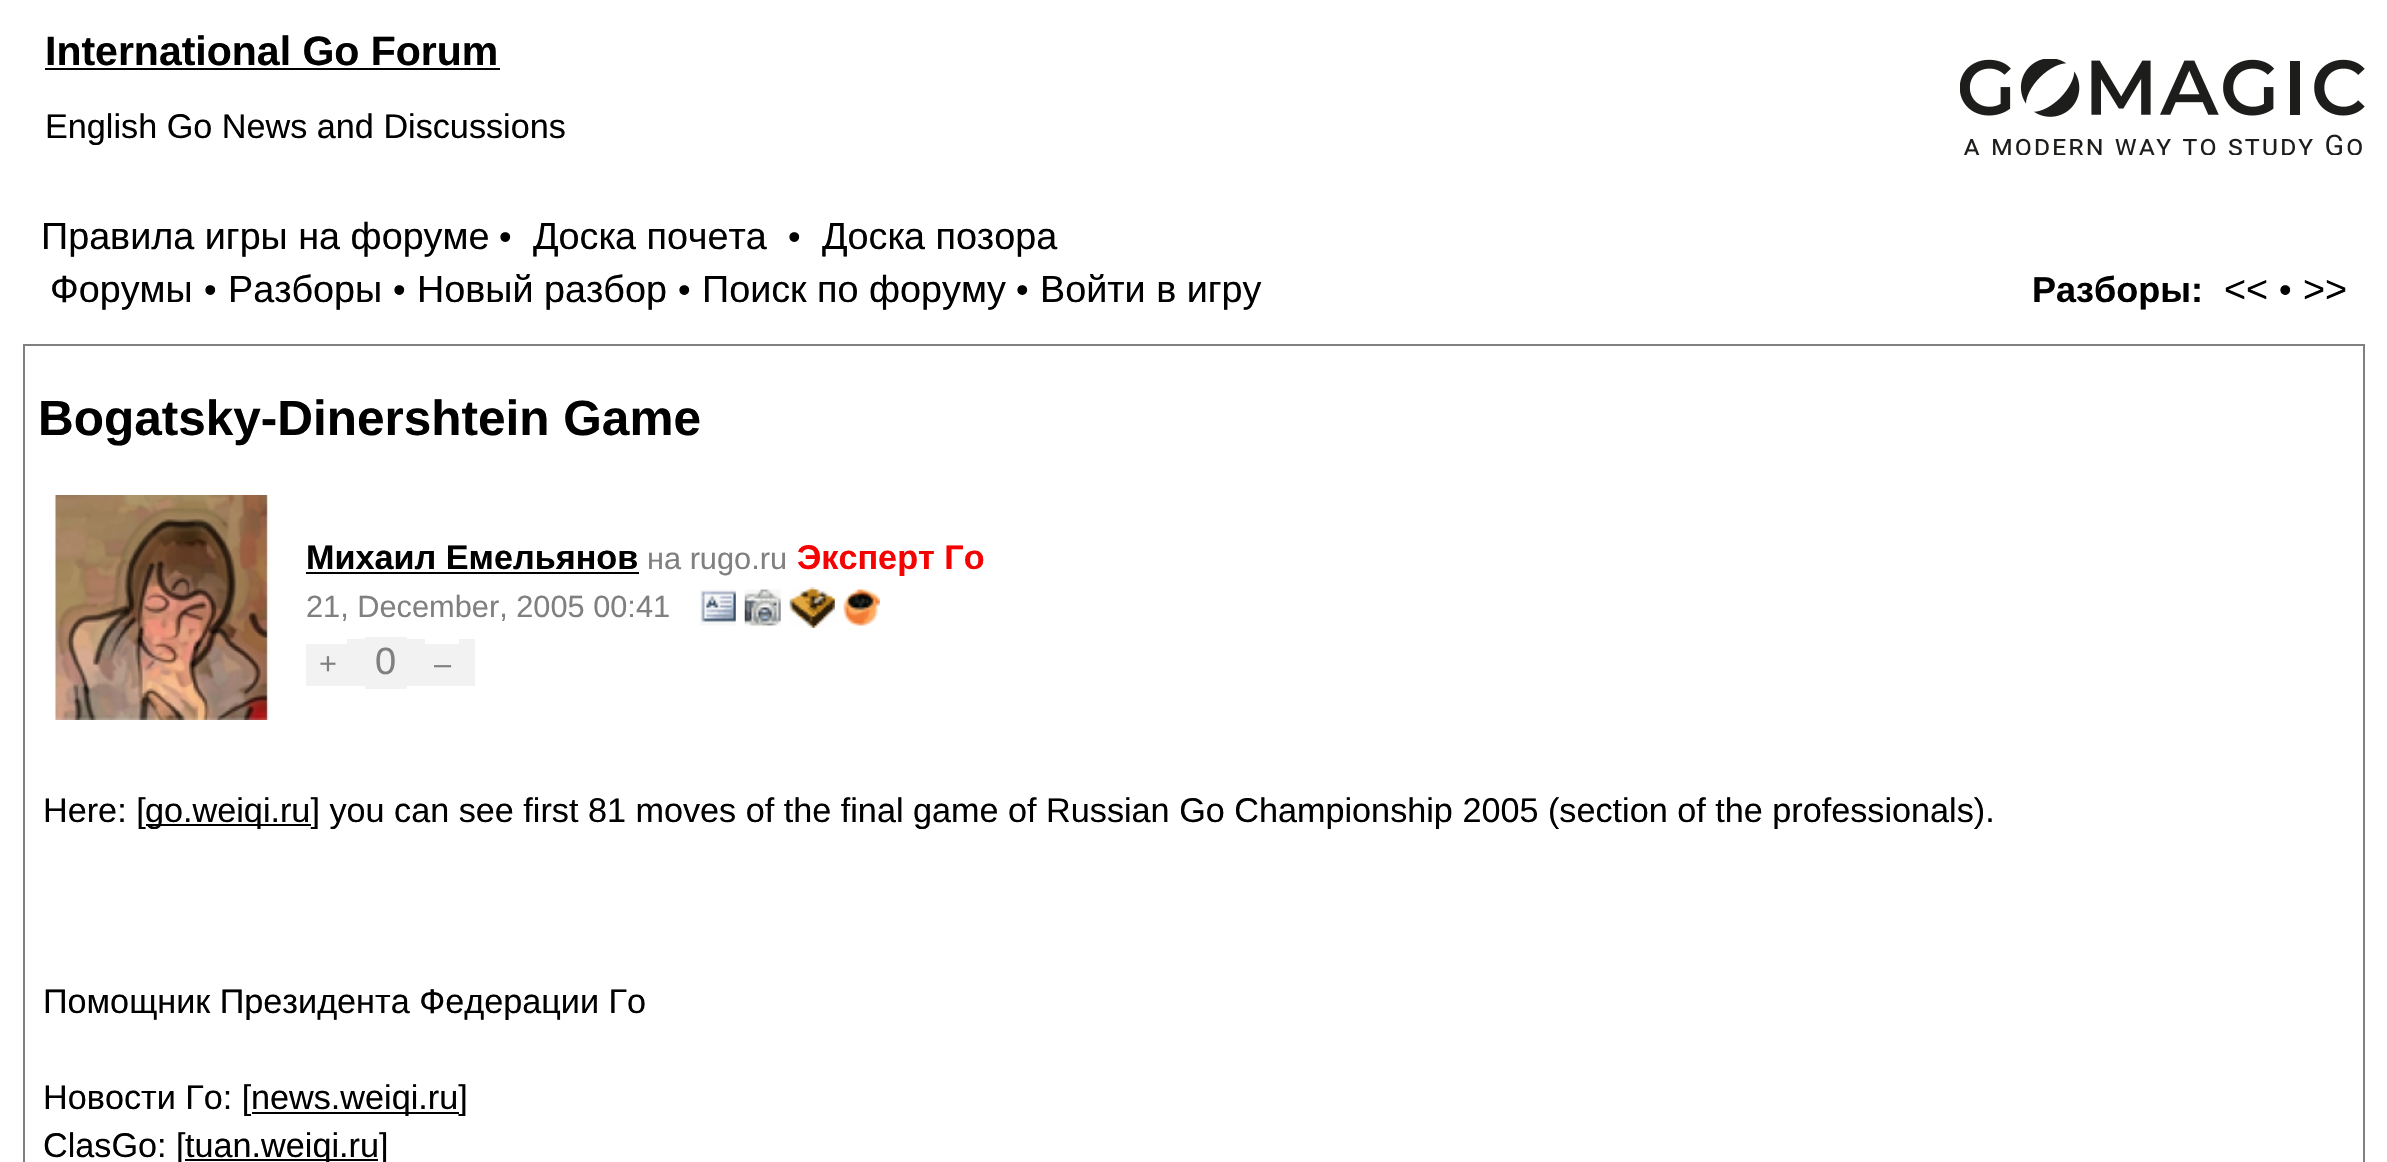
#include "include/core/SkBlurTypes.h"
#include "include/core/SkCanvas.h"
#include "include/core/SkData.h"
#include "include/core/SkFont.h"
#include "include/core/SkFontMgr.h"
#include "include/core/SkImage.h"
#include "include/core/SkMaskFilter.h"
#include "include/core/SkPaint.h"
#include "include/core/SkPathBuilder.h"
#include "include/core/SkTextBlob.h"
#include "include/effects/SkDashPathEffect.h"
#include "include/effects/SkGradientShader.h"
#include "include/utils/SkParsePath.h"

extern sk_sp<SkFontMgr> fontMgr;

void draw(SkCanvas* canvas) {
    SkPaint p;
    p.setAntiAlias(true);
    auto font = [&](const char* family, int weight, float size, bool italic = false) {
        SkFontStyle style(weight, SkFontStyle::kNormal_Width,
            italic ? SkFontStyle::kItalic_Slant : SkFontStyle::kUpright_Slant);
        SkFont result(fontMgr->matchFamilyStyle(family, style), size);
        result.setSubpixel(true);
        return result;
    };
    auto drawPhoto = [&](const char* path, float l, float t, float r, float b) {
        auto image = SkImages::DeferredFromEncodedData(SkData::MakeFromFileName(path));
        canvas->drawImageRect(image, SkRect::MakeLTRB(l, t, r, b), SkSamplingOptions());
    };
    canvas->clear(0xFFFFFFFF);
    auto font1 = font("Liberation Sans", 700, 41);
    p.setColor(0xFF000000);
    canvas->drawString("International Go Forum", 45, 65, font1, p);
    canvas->drawRect(SkRect::MakeLTRB(45, 68, 500, 70), p);
    auto font2 = font("Liberation Sans", 400, 34.2f);
    canvas->drawString("English Go News and Discussions", 45, 138, font2, p);
    auto font3 = font("Liberation Sans", 400, 37.75f);
    canvas->drawString("Правила игры на форуме", 41, 249, font3, p);
    auto font4 = font("Liberation Sans", 400, 36);
    canvas->drawString("•", 499, 249, font4, p);
    canvas->drawString("Доска почета", 533, 249, font3, p);
    canvas->drawString("•", 788, 249, font4, p);
    canvas->drawString("Доска позора", 822, 249, font3, p);
    canvas->drawString("Форумы", 50, 302, font3, p);
    canvas->drawString("•", 204, 302, font4, p);
    canvas->drawString("Разборы", 228, 302, font3, p);
    canvas->drawString("•", 393, 302, font4, p);
    canvas->drawString("Новый разбор", 417, 302, font3, p);
    canvas->drawString("•", 678, 302, font4, p);
    canvas->drawString("Поиск по форуму", 702, 302, font3, p);
    canvas->drawString("•", 1016, 302, font4, p);
    canvas->drawString("Войти в игру", 1040, 302, font3, p);
    auto font5 = font("Liberation Sans", 700, 36);
    canvas->drawString("Разборы:", 2032, 302, font5, p);
    canvas->drawString("<<", 2224, 302, font3, p);
    canvas->drawString("•", 2279, 302, font4, p);
    canvas->drawString(">>", 2303, 302, font3, p);
    p.setStyle(SkPaint::kStroke_Style);
    p.setStrokeWidth(2);
    p.setColor(0xFF808080);
    canvas->drawRect(SkRect::MakeLTRB(24, 345, 2364, 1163), p);
    auto font6 = font("Liberation Sans", 700, 49.5f);
    p.setStyle(SkPaint::kFill_Style);
    p.setColor(0xFF000000);
    canvas->drawString("Bogatsky-Dinershtein Game", 38, 435, font6, p);
    drawPhoto("media/1.png", 54, 495, 270, 720);
    auto font7 = font("Liberation Sans", 700, 34.2f);
    canvas->drawString("Михаил Емельянов", 306, 569, font7, p);
    canvas->drawRect(SkRect::MakeLTRB(306, 572, 639, 574), p);
    auto font8 = font("Liberation Sans", 400, 30.75f);
    p.setColor(0xFF808080);
    canvas->drawString("на rugo.ru", 647, 569, font8, p);
    p.setColor(0xFFF50202);
    canvas->drawString("Эксперт Го", 797, 569, font7, p);
    p.setColor(0xFF808080);
    canvas->drawString("21, December, 2005 00:41", 306, 617, font8, p);
    drawPhoto("media/2.png", 700, 589, 736, 626);
    drawPhoto("media/3.png", 744, 589, 781, 626);
    drawPhoto("media/4.png", 789, 587, 835, 628);
    drawPhoto("media/5.png", 843, 589, 880, 626);
    p.setColor(0xFFF2F2F2);
    canvas->drawRect(SkRect::MakeLTRB(306, 644, 347, 686), p);
    p.setColor(0xFF808080);
    canvas->drawString("+", 319, 674, font8, p);
    p.setColor(0xFFF2F2F2);
    canvas->drawRect(SkRect::MakeLTRB(347, 639, 365, 686), p);
    canvas->drawRect(SkRect::MakeLTRB(365, 637, 407, 689), p);
    auto font9 = font("Liberation Sans", 400, 38);
    p.setColor(0xFF808080);
    canvas->drawString("0", 375, 674, font9, p);
    p.setColor(0xFFF2F2F2);
    canvas->drawRect(SkRect::MakeLTRB(407, 639, 425, 686), p);
    canvas->drawRect(SkRect::MakeLTRB(425, 644, 459, 686), p);
    p.setColor(0xFF808080);
    canvas->drawString("–", 434, 674, font8, p);
    p.setColor(0xFFF2F2F2);
    canvas->drawRect(SkRect::MakeLTRB(459, 639, 475, 686), p);
    p.setColor(0xFF000000);
    canvas->drawString("Here: [", 43, 822, font2, p);
    canvas->drawRect(SkRect::MakeLTRB(146, 824, 311, 826), p);
    {
        const struct { const char* s; float x, y; } items[] = {
            {"go.weiqi.ru] you can see first 81 moves of the final game of Russian Go Championship 2005 (section of the professionals).", 145, 822},
            {"Помощник Президента Федерации Го", 43, 1013},
            {"Новости Го: [", 43, 1109},
        };
        for (auto [s, x, y] : items) {
            canvas->drawString(s, x, y, font2, p);
        }
    }
    canvas->drawRect(SkRect::MakeLTRB(252, 1112, 459, 1114), p);
    canvas->drawString("news.weiqi.ru]", 251, 1109, font2, p);
    canvas->drawString("ClasGo: [", 43, 1157, font2, p);
    canvas->drawRect(SkRect::MakeLTRB(185, 1159, 378, 1161), p);
    canvas->drawString("tuan.weiqi.ru]", 185, 1157, font2, p);
    drawPhoto("media/6.png", 1960, 59, 2365, 155);
}
